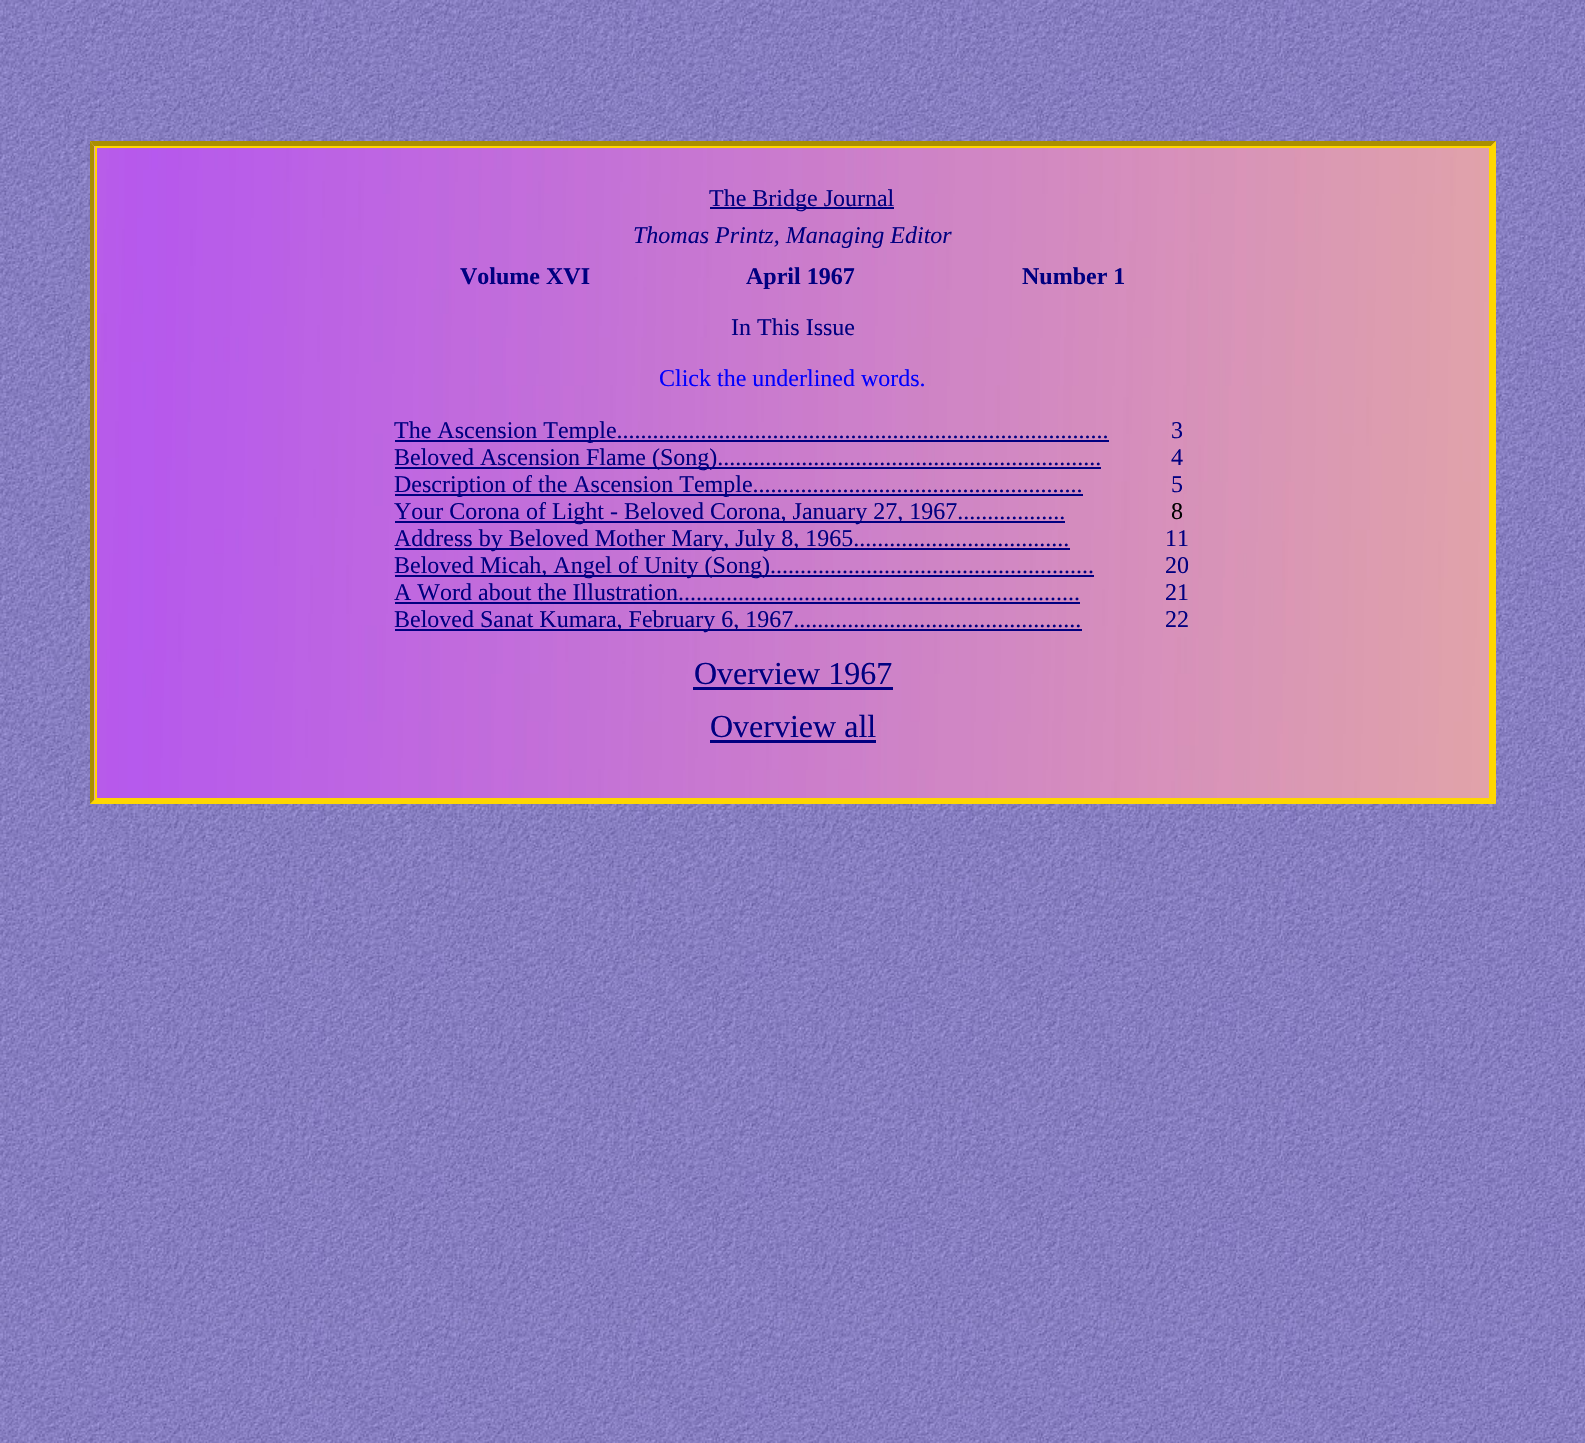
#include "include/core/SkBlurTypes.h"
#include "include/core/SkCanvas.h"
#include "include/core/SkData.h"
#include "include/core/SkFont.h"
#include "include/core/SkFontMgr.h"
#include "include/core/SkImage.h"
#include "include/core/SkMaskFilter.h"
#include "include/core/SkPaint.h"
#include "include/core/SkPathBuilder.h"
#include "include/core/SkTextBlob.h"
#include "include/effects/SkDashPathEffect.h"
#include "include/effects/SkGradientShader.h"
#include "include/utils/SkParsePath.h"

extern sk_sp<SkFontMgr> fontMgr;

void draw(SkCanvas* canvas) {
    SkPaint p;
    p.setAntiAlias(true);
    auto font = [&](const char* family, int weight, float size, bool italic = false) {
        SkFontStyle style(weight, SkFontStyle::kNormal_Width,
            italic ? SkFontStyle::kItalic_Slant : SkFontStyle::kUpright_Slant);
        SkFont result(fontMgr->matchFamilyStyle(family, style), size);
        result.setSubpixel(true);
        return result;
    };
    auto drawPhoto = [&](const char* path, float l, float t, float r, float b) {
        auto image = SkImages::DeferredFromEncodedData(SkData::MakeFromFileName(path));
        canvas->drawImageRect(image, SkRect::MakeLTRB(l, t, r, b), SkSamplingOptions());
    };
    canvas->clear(0xFFFFFFFF);
    drawPhoto("media/1.png", 0, 0, 1585, 1443);
    drawPhoto("media/2.png", 90, 141, 1496, 804);
    p.setColor(0xFFAA8F00);
    canvas->drawPath(SkPathBuilder().moveTo(90, 141).lineTo(1496, 141).lineTo(1491, 146).lineTo(94, 146).close().detach(), p);
    p.setColor(0xFFFFD700);
    canvas->drawPath(SkPathBuilder().moveTo(1496, 141).lineTo(1496, 804).lineTo(1491, 800).lineTo(1491, 146).close().detach(), p);
    canvas->drawPath(SkPathBuilder().moveTo(1496, 804).lineTo(90, 804).lineTo(94, 800).lineTo(1491, 800).close().detach(), p);
    p.setColor(0xFFAA8F00);
    canvas->drawPath(SkPathBuilder().moveTo(90, 804).lineTo(90, 141).lineTo(94, 146).lineTo(94, 800).close().detach(), p);
    p.setStyle(SkPaint::kStroke_Style);
    p.setStrokeWidth(2);
    p.setColor(0xFFFFD700);
    canvas->drawRect(SkRect::MakeLTRB(96, 147, 1490, 799), p);
    p.setStyle(SkPaint::kFill_Style);
    p.setColor(0xFF000080);
    canvas->drawRect(SkRect::MakeLTRB(710, 207, 894, 209), p);
    auto font1 = font("Liberation Serif", 400, 24);
    canvas->drawString("The Bridge Journal", 709, 206, font1, p);
    auto font2 = font("Liberation Serif", 400, 24, true);
    canvas->drawString("Thomas Printz, Managing Editor", 633, 243, font2, p);
    auto font3 = font("Liberation Serif", 700, 24);
    {
        const struct { const char* s; float x, y; } items[] = {
            {"Volume XVI", 460, 284},
            {"April 1967", 746, 284},
            {"Number 1", 1022, 284},
        };
        for (auto [s, x, y] : items) {
            canvas->drawString(s, x, y, font3, p);
        }
    }
    canvas->drawString("In This Issue", 731, 335, font1, p);
    p.setColor(0xFF0000FF);
    canvas->drawString("Click the underlined words.", 659, 386, font1, p);
    p.setColor(0xFF000080);
    canvas->drawRect(SkRect::MakeLTRB(395, 440, 1109, 442), p);
    canvas->drawString("The Ascension Temple..................................................................................", 394, 438, font1, p);
    canvas->drawString("3", 1171, 438, font1, p);
    canvas->drawRect(SkRect::MakeLTRB(395, 467, 1101, 469), p);
    canvas->drawString("Beloved Ascension Flame (Song)................................................................", 394, 465, font1, p);
    canvas->drawString("4", 1171, 465, font1, p);
    canvas->drawRect(SkRect::MakeLTRB(395, 494, 1083, 496), p);
    canvas->drawString("Description of the Ascension Temple.......................................................", 394, 492, font1, p);
    canvas->drawString("5", 1171, 492, font1, p);
    canvas->drawRect(SkRect::MakeLTRB(395, 521, 1065, 523), p);
    canvas->drawString("Your Corona of Light - Beloved Corona, January 27, 1967..................", 394, 519, font1, p);
    p.setColor(0xFF000000);
    canvas->drawString("8", 1171, 519, font1, p);
    p.setColor(0xFF000080);
    canvas->drawRect(SkRect::MakeLTRB(395, 548, 1070, 550), p);
    canvas->drawString("Address by Beloved Mother Mary, July 8, 1965....................................", 394, 546, font1, p);
    canvas->drawString("11", 1165, 546, font1, p);
    canvas->drawRect(SkRect::MakeLTRB(395, 575, 1094, 577), p);
    {
        const struct { const char* s; float x, y; } items[] = {
            {"Beloved Micah, Angel of Unity (Song)......................................................", 394, 573},
            {"20", 1165, 573},
            {"A Word about the Illustration...................................................................", 394, 600},
        };
        for (auto [s, x, y] : items) {
            canvas->drawString(s, x, y, font1, p);
        }
    }
    canvas->drawRect(SkRect::MakeLTRB(395, 602, 1080, 604), p);
    canvas->drawString("21", 1165, 600, font1, p);
    canvas->drawRect(SkRect::MakeLTRB(395, 629, 1082, 631), p);
    canvas->drawString("Beloved Sanat Kumara, February 6, 1967................................................", 394, 627, font1, p);
    canvas->drawString("22", 1165, 627, font1, p);
    auto font4 = font("Liberation Serif", 400, 32);
    canvas->drawString("Overview 1967", 694, 684, font4, p);
    canvas->drawRect(SkRect::MakeLTRB(693, 687, 893, 690), p);
    canvas->drawString("Overview all", 710, 737, font4, p);
    canvas->drawRect(SkRect::MakeLTRB(710, 740, 876, 743), p);
}
